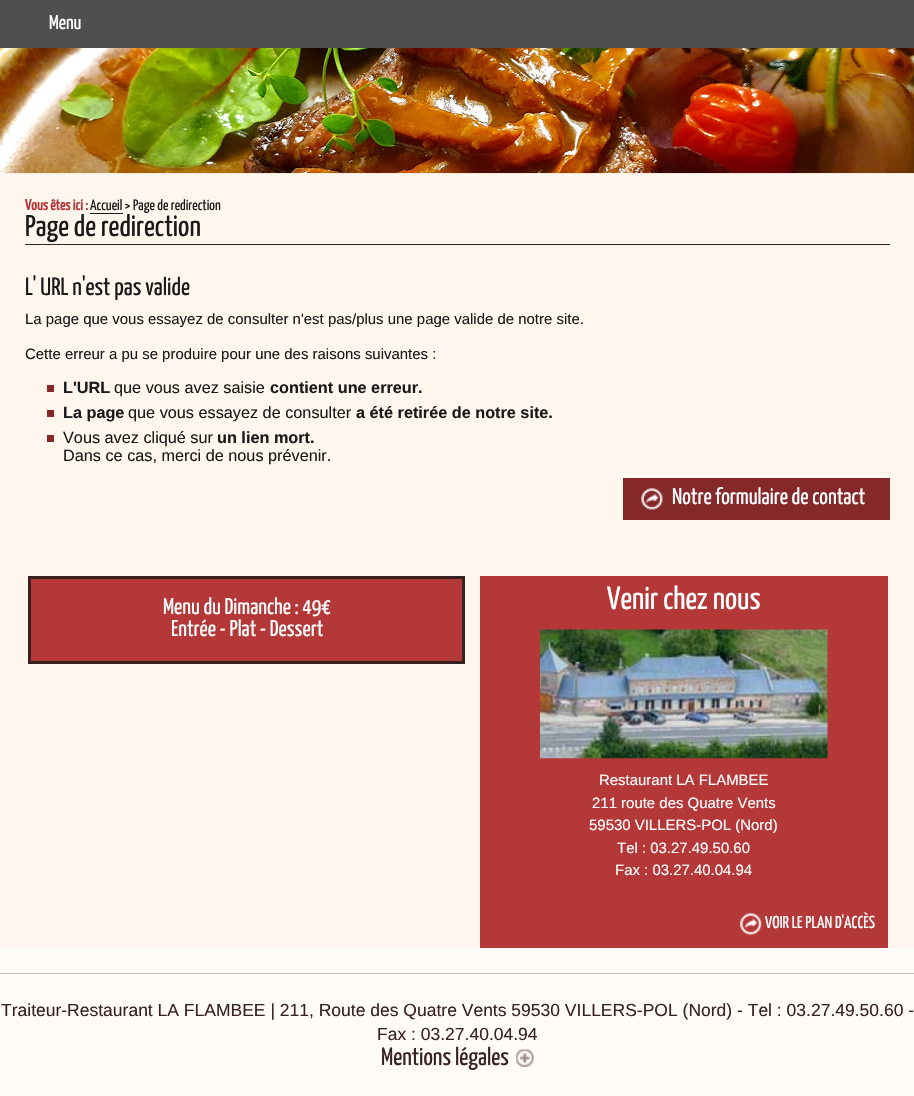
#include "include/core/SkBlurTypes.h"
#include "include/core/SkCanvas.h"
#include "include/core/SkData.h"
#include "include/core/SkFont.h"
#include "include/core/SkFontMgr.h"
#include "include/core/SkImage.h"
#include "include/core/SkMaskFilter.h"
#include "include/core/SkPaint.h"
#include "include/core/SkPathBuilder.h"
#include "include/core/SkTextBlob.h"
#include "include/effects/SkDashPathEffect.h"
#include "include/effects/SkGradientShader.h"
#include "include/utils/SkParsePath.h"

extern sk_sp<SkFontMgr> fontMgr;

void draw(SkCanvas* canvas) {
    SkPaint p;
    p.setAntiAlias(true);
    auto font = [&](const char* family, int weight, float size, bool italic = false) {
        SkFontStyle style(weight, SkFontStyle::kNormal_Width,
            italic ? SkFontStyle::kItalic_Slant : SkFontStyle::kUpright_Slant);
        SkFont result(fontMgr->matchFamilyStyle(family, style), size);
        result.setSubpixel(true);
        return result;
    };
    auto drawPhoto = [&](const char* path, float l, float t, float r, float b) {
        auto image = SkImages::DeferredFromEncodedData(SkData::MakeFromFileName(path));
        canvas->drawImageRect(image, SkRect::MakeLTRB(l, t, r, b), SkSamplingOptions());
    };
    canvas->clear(0xFFFFF6ED);
    p.setColor(0xFF4F4F4F);
    canvas->drawRect(SkRect::MakeLTRB(0, 0, 914, 48), p);
    auto font1 = font("Yanone Kaffeesatz", 200, 20);
    p.setColor(0xFFFFFFFF);
    canvas->drawString("Menu", 49, 29, font1, p);
    drawPhoto("media/1.png", 0, 48, 914, 174);
    auto font2 = font("Yanone Kaffeesatz", 700, 14.95f);
    p.setColor(0xFFB53839);
    canvas->drawString("Vous êtes ici :", 25, 210, font2, p);
    auto font3 = font("Yanone Kaffeesatz", 200, 14.95f);
    p.setColor(0xFF191919);
    canvas->drawString("Accueil > Page de redirection", 90, 210, font3, p);
    canvas->drawRect(SkRect::MakeLTRB(90, 213, 123, 214), p);
    p.setColor(0xFF392021);
    canvas->drawRect(SkRect::MakeLTRB(25, 244, 890, 245), p);
    auto font4 = font("Yanone Kaffeesatz", 200, 30);
    p.setColor(0xFF191919);
    canvas->drawString("Page de redirection", 25, 236, font4, p);
    auto font5 = font("Yanone Kaffeesatz", 200, 25);
    canvas->drawString("L' URL n'est pas valide", 25, 295, font5, p);
    auto font6 = font("Liberation Sans", 400, 14.95f);
    canvas->drawString("La page que vous essayez de consulter n'est pas/plus une page valide de notre site.", 25, 324, font6, p);
    canvas->drawString("Cette erreur a pu se produire pour une des raisons suivantes :", 25, 359, font6, p);
    p.setColor(0xFF862829);
    canvas->drawRect(SkRect::MakeLTRB(47, 385, 54, 392), p);
    auto font7 = font("Liberation Sans", 700, 16.25f);
    p.setColor(0xFF191919);
    canvas->drawString("L'URL", 63, 393, font7, p);
    auto font8 = font("Liberation Sans", 400, 16.25f);
    canvas->drawString("que vous avez saisie", 114, 393, font8, p);
    canvas->drawString("contient une erreur.", 270, 393, font7, p);
    p.setColor(0xFF862829);
    canvas->drawRect(SkRect::MakeLTRB(47, 410, 54, 417), p);
    p.setColor(0xFF191919);
    canvas->drawString("La page", 63, 418, font7, p);
    canvas->drawString("que vous essayez de consulter", 128, 418, font8, p);
    canvas->drawString("a été retirée de notre site.", 356, 418, font7, p);
    p.setColor(0xFF862829);
    canvas->drawRect(SkRect::MakeLTRB(47, 435, 54, 442), p);
    p.setColor(0xFF191919);
    canvas->drawString("Vous avez cliqué sur", 63, 443, font8, p);
    canvas->drawString("un lien mort.", 217, 443, font7, p);
    canvas->drawString("Dans ce cas, merci de nous prévenir.", 63, 461, font8, p);
    p.setColor(0xFF842829);
    canvas->drawRect(SkRect::MakeLTRB(623, 478, 890, 520), p);
    drawPhoto("media/2.png", 641, 488, 663, 510);
    auto font9 = font("Yanone Kaffeesatz", 200, 22.9f);
    p.setColor(0xFFFFFFFF);
    canvas->drawString("Notre formulaire de contact", 672, 504, font9, p);
    p.setColor(0xFFB53839);
    canvas->drawRect(SkRect::MakeLTRB(29.5f, 577.5f, 463.5f, 662.5f), p);
    p.setStyle(SkPaint::kStroke_Style);
    p.setStrokeWidth(3);
    p.setColor(0xFF392021);
    canvas->drawRect(SkRect::MakeLTRB(29.5f, 577.5f, 463.5f, 662.5f), p);
    auto font10 = font("Yanone Kaffeesatz", 200, 22.75f);
    p.setStyle(SkPaint::kFill_Style);
    p.setColor(0xFFFFFFFF);
    canvas->drawString("Menu du Dimanche : 49€", 163, 614, font10, p);
    canvas->drawString("Entrée - Plat - Dessert", 171, 636, font10, p);
    p.setColor(0xFFB53839);
    canvas->drawRect(SkRect::MakeLTRB(480, 576, 888, 948), p);
    auto font11 = font("Yanone Kaffeesatz", 200, 32);
    p.setColor(0xFFFFFFFF);
    canvas->drawString("Venir chez nous", 607, 609, font11, p);
    drawPhoto("media/3.png", 540, 629, 828, 759);
    {
        const struct { const char* s; float x, y; } items[] = {
            {"Restaurant LA FLAMBEE", 599, 785},
            {"211 route des Quatre Vents", 592, 808},
            {"59530 VILLERS-POL (Nord)", 589, 830},
            {"Tel : 03.27.49.50.60", 617, 853},
            {"Fax : 03.27.40.04.94", 615, 875},
        };
        for (auto [s, x, y] : items) {
            canvas->drawString(s, x, y, font6, p);
        }
    }
    drawPhoto("media/4.png", 740, 913, 762, 935);
    auto font12 = font("Yanone Kaffeesatz", 200, 17.25f);
    canvas->drawString("VOIR LE PLAN D'ACCÈS", 765, 928, font12, p);
    p.setColor(0xFFFFFBF8);
    canvas->drawRect(SkRect::MakeLTRB(0, 948, 914, 1096), p);
    p.setColor(0xFFC1BAB6);
    canvas->drawRect(SkRect::MakeLTRB(0, 973, 914, 974), p);
    auto font13 = font("Liberation Sans", 400, 17.5f);
    p.setColor(0xFF392021);
    canvas->drawString("Traiteur-Restaurant LA FLAMBEE | 211, Route des Quatre Vents 59530 VILLERS-POL (Nord) - Tel : 03.27.49.50.60 -", 1, 1016, font13, p);
    canvas->drawString("Fax : 03.27.40.04.94", 377, 1040, font13, p);
    drawPhoto("media/5.png", 516, 1049, 534, 1067);
    canvas->drawString("Mentions légales", 381, 1065, font5, p);
}
